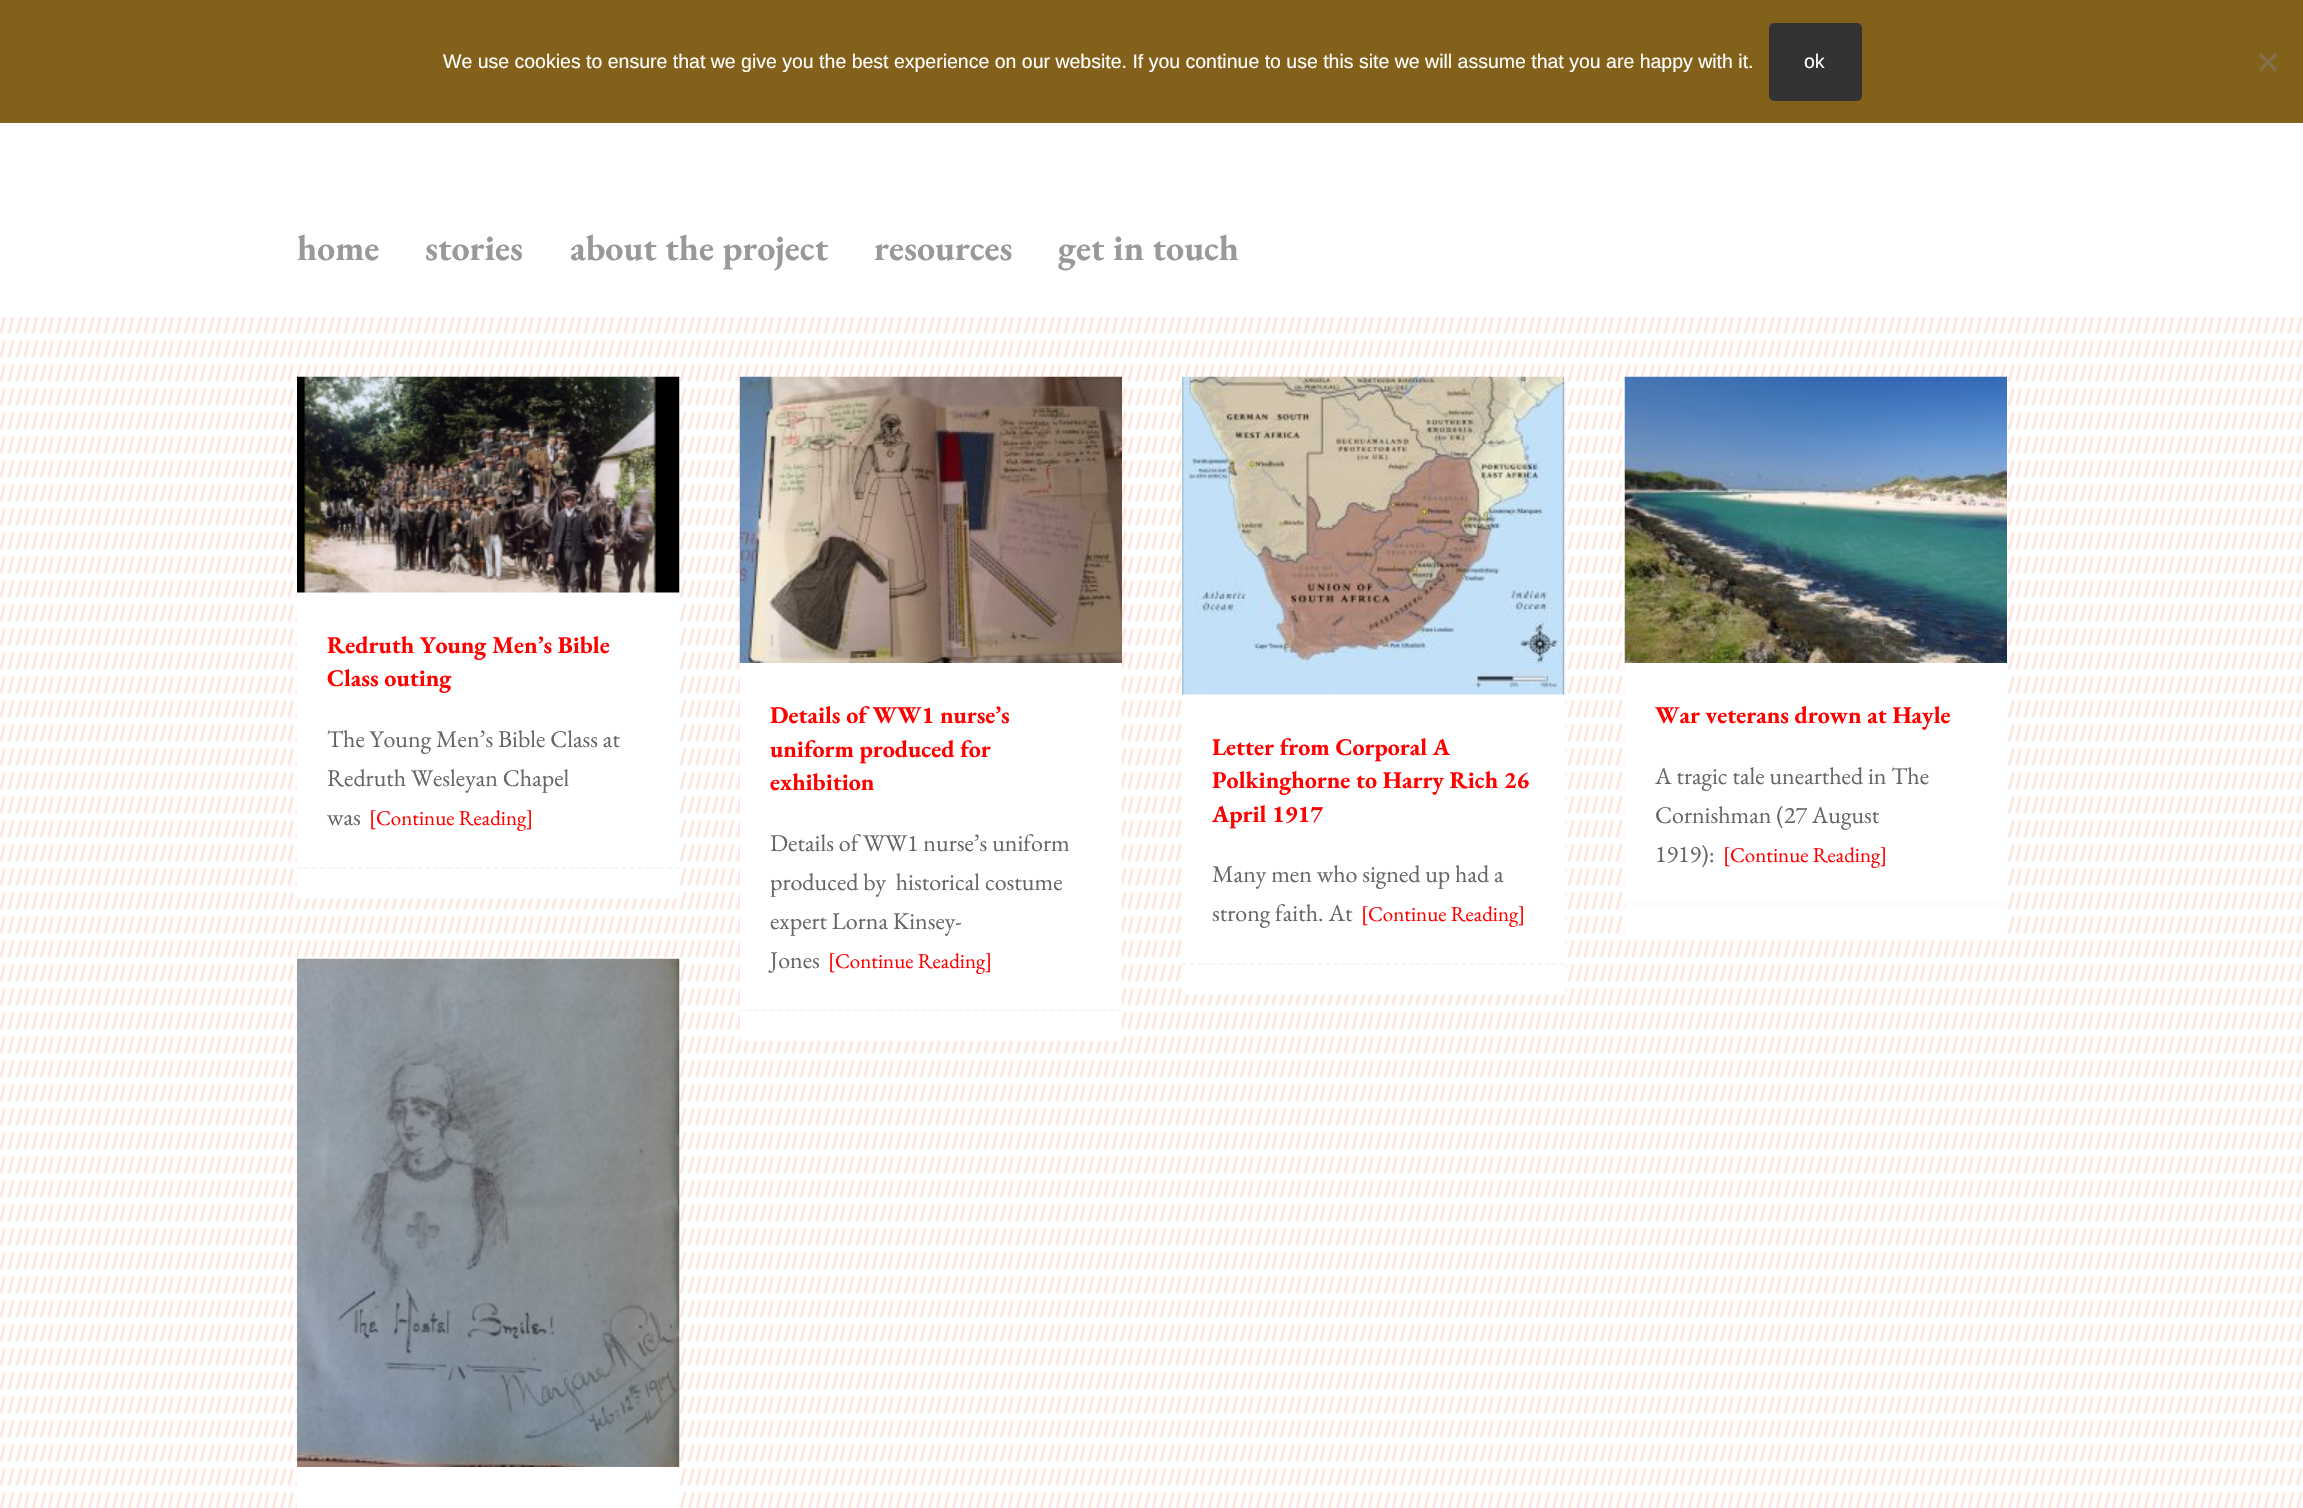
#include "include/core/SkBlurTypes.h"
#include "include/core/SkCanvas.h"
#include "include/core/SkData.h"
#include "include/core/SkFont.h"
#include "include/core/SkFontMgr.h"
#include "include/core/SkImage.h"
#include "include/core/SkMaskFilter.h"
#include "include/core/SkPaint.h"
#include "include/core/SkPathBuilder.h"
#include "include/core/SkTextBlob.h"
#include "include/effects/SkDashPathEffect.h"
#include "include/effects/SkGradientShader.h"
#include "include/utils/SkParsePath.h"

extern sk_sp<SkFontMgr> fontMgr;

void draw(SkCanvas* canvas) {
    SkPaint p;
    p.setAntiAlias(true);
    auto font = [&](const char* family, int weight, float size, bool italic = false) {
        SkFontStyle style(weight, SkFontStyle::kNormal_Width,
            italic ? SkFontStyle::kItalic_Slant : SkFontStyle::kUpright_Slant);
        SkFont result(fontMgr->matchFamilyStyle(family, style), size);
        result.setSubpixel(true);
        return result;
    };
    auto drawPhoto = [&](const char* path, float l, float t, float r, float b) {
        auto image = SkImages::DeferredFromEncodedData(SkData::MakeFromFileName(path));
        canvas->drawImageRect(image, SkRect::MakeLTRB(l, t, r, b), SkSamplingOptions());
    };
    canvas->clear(0xFFFFFFFF);
    drawPhoto("media/1.png", 0, 317, 2303, 1508);
    p.setColor(0xFF84611A);
    canvas->drawRect(SkRect::MakeLTRB(0, 0, 2303, 123), p);
    auto font1 = font("Liberation Sans", 400, 19.5f);
    p.setColor(0xFFFFFFFF);
    canvas->drawString("We use cookies to ensure that we give you the best experience on our website. If you continue to use this site we will assume that you are happy with it.", 443, 68, font1, p);
    p.setColor(0xFF333333);
    canvas->drawRoundRect(SkRect::MakeLTRB(1769, 23, 1862, 101), 5, 5, p);
    p.setColor(0xFFFFFFFF);
    canvas->drawString("ok", 1804, 68, font1, p);
    p.setColor(0xFF82714D);
    canvas->drawPath(SkPathBuilder().moveTo(2275, 53).lineTo(2277, 55.5f).lineTo(2261, 71.5f).lineTo(2259, 69).close().detach(), p);
    canvas->drawPath(SkPathBuilder().moveTo(2259, 55.5f).lineTo(2261, 53).lineTo(2277, 69).lineTo(2275, 71.5f).close().detach(), p);
    auto font2 = font("EB Garamond", 700, 36);
    p.setColor(0xFF999999);
    {
        const struct { const char* s; float x, y; } items[] = {
            {"home", 297, 260},
            {"stories", 425, 260},
            {"about the project", 570, 260},
            {"resources", 874, 260},
            {"get in touch", 1058, 260},
        };
        for (auto [s, x, y] : items) {
            canvas->drawString(s, x, y, font2, p);
        }
    }
    p.setColor(0xFFFFFFFF);
    canvas->drawRect(SkRect::MakeLTRB(297, 377, 680, 899), p);
    drawPhoto("media/2.png", 297, 376, 680, 593);
    auto font3 = font("EB Garamond", 700, 24);
    p.setColor(0xFFFF0000);
    canvas->drawString("Redruth Young Men’s Bible", 327, 653, font3, p);
    canvas->drawString("Class outing", 327, 686, font3, p);
    auto font4 = font("EB Garamond", 400, 24);
    p.setColor(0xFF666666);
    {
        const struct { const char* s; float x, y; } items[] = {
            {"The Young Men’s Bible Class at", 327, 747},
            {"Redruth Wesleyan Chapel", 327, 786},
            {"was", 327, 825},
        };
        for (auto [s, x, y] : items) {
            canvas->drawString(s, x, y, font4, p);
        }
    }
    auto font5 = font("EB Garamond", 400, 21);
    p.setColor(0xFFFF0000);
    canvas->drawString("[Continue Reading]", 369, 825, font5, p);
    p.setStyle(SkPaint::kStroke_Style);
    p.setStrokeWidth(1.5f);
    p.setColor(0xFFF5F5F5);
    p.setPathEffect(SkDashPathEffect::Make({{4.5f, 3.06f}}, 0));
    canvas->drawPath(SkPathBuilder().moveTo(297, 868).lineTo(679.5f, 868).detach(), p);
    p.setPathEffect(nullptr);
    p.setStyle(SkPaint::kFill_Style);
    p.setColor(0xFFFFFFFF);
    canvas->drawRect(SkRect::MakeLTRB(740, 663, 1122, 1041), p);
    drawPhoto("media/3.png", 739, 376, 1122, 663);
    p.setColor(0xFFFF0000);
    {
        const struct { const char* s; float x, y; } items[] = {
            {"Details of WW1 nurse’s", 770, 723},
            {"uniform produced for", 770, 757},
            {"exhibition", 770, 790},
        };
        for (auto [s, x, y] : items) {
            canvas->drawString(s, x, y, font3, p);
        }
    }
    p.setColor(0xFF666666);
    {
        const struct { const char* s; float x, y; } items[] = {
            {"Details of WW1 nurse’s uniform", 770, 851},
            {"produced by  historical costume", 770, 890},
            {"expert Lorna Kinsey-", 770, 929},
            {"Jones", 770, 968},
        };
        for (auto [s, x, y] : items) {
            canvas->drawString(s, x, y, font4, p);
        }
    }
    p.setColor(0xFFFF0000);
    canvas->drawString("[Continue Reading]", 828, 968, font5, p);
    p.setStyle(SkPaint::kStroke_Style);
    p.setColor(0xFFF5F5F5);
    p.setPathEffect(SkDashPathEffect::Make({{4.5f, 3.06f}}, 0));
    canvas->drawPath(SkPathBuilder().moveTo(739.5f, 1010).lineTo(1122, 1010).detach(), p);
    p.setPathEffect(nullptr);
    p.setStyle(SkPaint::kFill_Style);
    p.setColor(0xFFFFFFFF);
    canvas->drawRect(SkRect::MakeLTRB(1182, 377, 1565, 995), p);
    drawPhoto("media/4.png", 1182, 376, 1565, 695);
    p.setColor(0xFFFF0000);
    {
        const struct { const char* s; float x, y; } items[] = {
            {"Letter from Corporal A", 1212, 755},
            {"Polkinghorne to Harry Rich 26", 1212, 788},
            {"April 1917", 1212, 822},
        };
        for (auto [s, x, y] : items) {
            canvas->drawString(s, x, y, font3, p);
        }
    }
    p.setColor(0xFF666666);
    canvas->drawString("Many men who signed up had a", 1212, 882, font4, p);
    canvas->drawString("strong faith. At", 1212, 921, font4, p);
    p.setColor(0xFFFF0000);
    canvas->drawString("[Continue Reading]", 1361, 921, font5, p);
    p.setStyle(SkPaint::kStroke_Style);
    p.setColor(0xFFF5F5F5);
    p.setPathEffect(SkDashPathEffect::Make({{4.5f, 3.06f}}, 0));
    canvas->drawPath(SkPathBuilder().moveTo(1182, 964).lineTo(1564.5f, 964).detach(), p);
    p.setPathEffect(nullptr);
    p.setStyle(SkPaint::kFill_Style);
    p.setColor(0xFFFFFFFF);
    canvas->drawRect(SkRect::MakeLTRB(1625, 663, 2007, 934), p);
    drawPhoto("media/5.png", 1624, 376, 2007, 663);
    p.setColor(0xFFFF0000);
    canvas->drawString("War veterans drown at Hayle", 1655, 723, font3, p);
    p.setColor(0xFF666666);
    {
        const struct { const char* s; float x, y; } items[] = {
            {"A tragic tale unearthed in The", 1655, 784},
            {"Cornishman (27 August", 1655, 823},
            {"1919):", 1655, 862},
        };
        for (auto [s, x, y] : items) {
            canvas->drawString(s, x, y, font4, p);
        }
    }
    p.setColor(0xFFFF0000);
    canvas->drawString("[Continue Reading]", 1723, 862, font5, p);
    p.setStyle(SkPaint::kStroke_Style);
    p.setColor(0xFFF5F5F5);
    p.setPathEffect(SkDashPathEffect::Make({{4.5f, 3.06f}}, 0));
    canvas->drawPath(SkPathBuilder().moveTo(1624.5f, 904).lineTo(2007, 904).detach(), p);
    p.setPathEffect(nullptr);
    p.setStyle(SkPaint::kFill_Style);
    p.setColor(0xFFFFFFFF);
    canvas->drawRect(SkRect::MakeLTRB(297, 964, 680, 1508), p);
    drawPhoto("media/6.png", 297, 958, 680, 1467);
}
